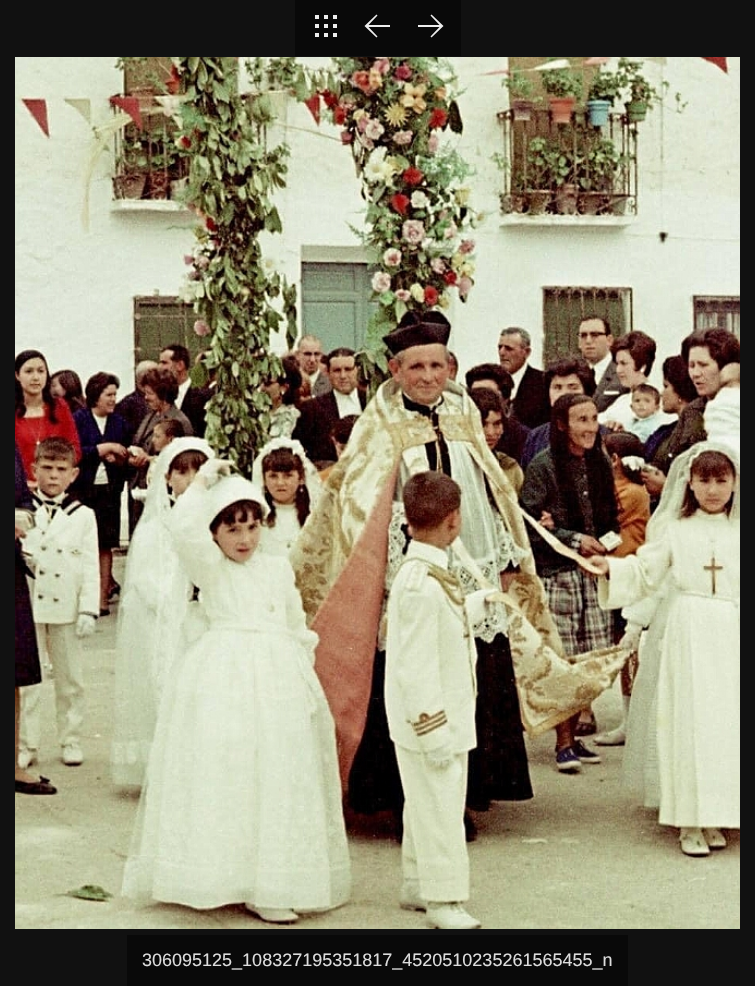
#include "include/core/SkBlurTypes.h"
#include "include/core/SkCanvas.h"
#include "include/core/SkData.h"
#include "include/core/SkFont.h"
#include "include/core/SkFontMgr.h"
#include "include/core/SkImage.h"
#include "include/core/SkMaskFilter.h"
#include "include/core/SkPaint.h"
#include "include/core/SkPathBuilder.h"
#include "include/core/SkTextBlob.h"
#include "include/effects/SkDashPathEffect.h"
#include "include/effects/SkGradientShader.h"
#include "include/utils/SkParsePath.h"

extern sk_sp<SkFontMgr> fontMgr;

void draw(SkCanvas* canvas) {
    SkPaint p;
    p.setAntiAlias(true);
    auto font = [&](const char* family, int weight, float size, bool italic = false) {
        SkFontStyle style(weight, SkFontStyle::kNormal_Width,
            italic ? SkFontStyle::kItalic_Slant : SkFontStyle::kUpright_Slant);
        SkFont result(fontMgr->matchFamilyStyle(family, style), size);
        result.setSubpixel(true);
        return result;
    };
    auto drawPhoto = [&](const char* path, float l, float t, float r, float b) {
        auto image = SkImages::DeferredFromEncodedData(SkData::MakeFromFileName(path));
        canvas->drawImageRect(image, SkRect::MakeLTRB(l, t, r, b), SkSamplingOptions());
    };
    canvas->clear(0xFF111111);
    p.setColor(0xFF090909);
    canvas->drawRect(SkRect::MakeLTRB(295, 0, 461, 56), p);
    drawPhoto("media/1.png", 315, 15, 337, 37);
    p.setColor(0xFFEEEEEE);
    canvas->drawPath(SkPathBuilder().moveTo(390, 25).lineTo(368.5f, 25).lineTo(377.5f, 15.5f).lineTo(376.5f, 14.5f).lineTo(364.5f, 26).lineTo(376.5f, 37.5f).lineTo(377.5f, 36.5f).lineTo(368.5f, 27).lineTo(390, 27).close().detach(), p);
    canvas->drawPath(SkPathBuilder().moveTo(418, 25).lineTo(439.5f, 25).lineTo(430.5f, 15.5f).lineTo(431.5f, 14.5f).lineTo(443.5f, 26).lineTo(431.5f, 37.5f).lineTo(430.5f, 36.5f).lineTo(439.5f, 27).lineTo(418, 27).close().detach(), p);
    drawPhoto("media/2.png", 15, 57, 740, 929);
    p.setColor(0xFF090909);
    canvas->drawRect(SkRect::MakeLTRB(127, 935, 628, 986), p);
    auto font1 = font("Liberation Sans", 400, 18);
    p.setColor(0xFFDDDDDD);
    canvas->drawString("306095125_108327195351817_4520510235261565455_n", 142, 966, font1, p);
}
